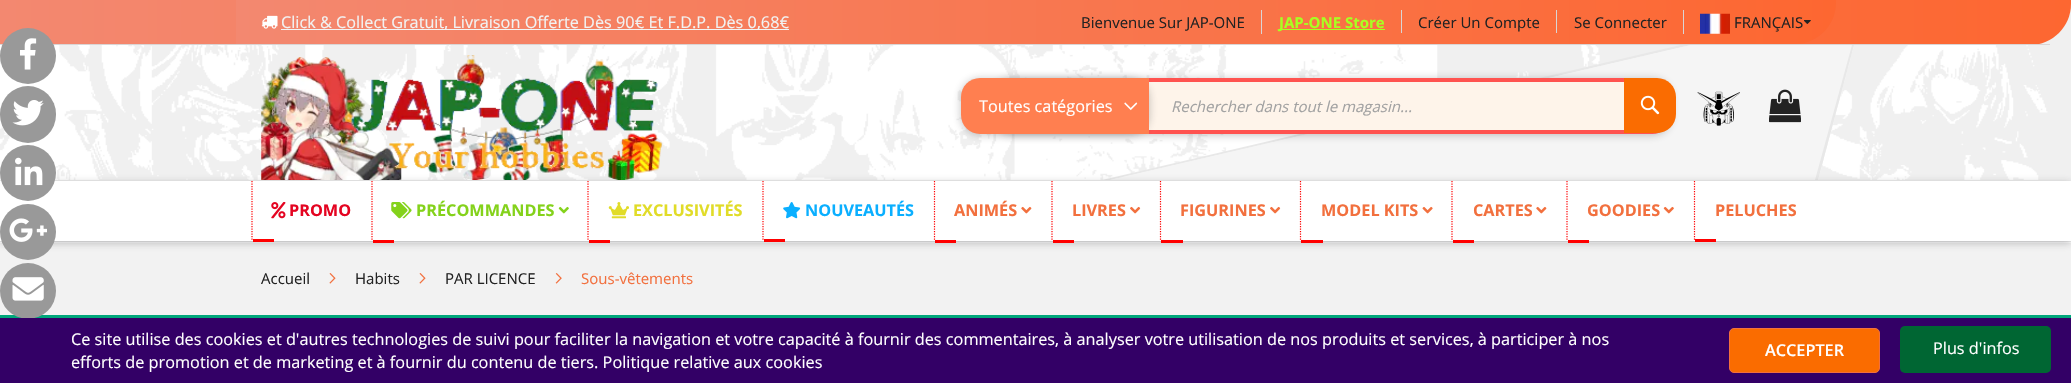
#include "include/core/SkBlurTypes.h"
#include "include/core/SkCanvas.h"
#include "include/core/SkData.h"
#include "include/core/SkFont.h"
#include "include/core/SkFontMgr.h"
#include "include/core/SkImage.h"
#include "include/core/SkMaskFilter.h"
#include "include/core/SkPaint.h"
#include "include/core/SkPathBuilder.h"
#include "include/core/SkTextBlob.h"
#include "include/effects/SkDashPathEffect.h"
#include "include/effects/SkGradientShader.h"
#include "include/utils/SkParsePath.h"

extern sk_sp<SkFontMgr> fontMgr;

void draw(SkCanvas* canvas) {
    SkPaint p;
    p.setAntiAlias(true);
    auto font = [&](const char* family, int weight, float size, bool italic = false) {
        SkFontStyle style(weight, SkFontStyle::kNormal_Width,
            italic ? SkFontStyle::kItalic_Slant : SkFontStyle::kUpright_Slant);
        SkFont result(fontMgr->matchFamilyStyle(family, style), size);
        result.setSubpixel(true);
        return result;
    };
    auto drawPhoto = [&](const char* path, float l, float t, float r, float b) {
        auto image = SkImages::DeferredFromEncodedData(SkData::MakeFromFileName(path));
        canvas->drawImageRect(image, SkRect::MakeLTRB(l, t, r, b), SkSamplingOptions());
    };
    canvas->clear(0xFFFFFFFF);
    drawPhoto("media/1.png", 0, 4, 2071, 180);
    {
        const SkColor colors[] = {0xFFF38870, 0xFFFD6731};
        const float stops[] = {0, 1};
        const SkPoint ends[] = {{0, 22}, {2071, 22}};
        p.setShader(SkGradientShader::MakeLinear(ends, colors, stops, 2, SkTileMode::kClamp));
        p.setAlpha(255);
    }
    canvas->drawPath(SkPathBuilder().moveTo(0, 0).lineTo(2071, 0).lineTo(2071, 4).cubicTo(2071, 26.5f, 2052.5f, 45, 2030, 45).lineTo(0, 45).close().detach(), p);
    p.setShader(nullptr);
    p.setColor(0xFFDAD5D5);
    canvas->drawRect(SkRect::MakeLTRB(0, 44, 2050, 45), p);
    {
        const SkColor colors[] = {0xFFF38870, 0xFFFD6731};
        const float stops[] = {0, 1};
        const SkPoint ends[] = {{236, 22}, {1836, 22}};
        p.setShader(SkGradientShader::MakeLinear(ends, colors, stops, 2, SkTileMode::kClamp));
        p.setAlpha(255);
    }
    canvas->drawPath(SkPathBuilder().moveTo(236, 0).lineTo(1836, 0).lineTo(1836, 3).cubicTo(1836, 25.5f, 1817.5f, 44, 1795, 44).lineTo(236, 44).close().detach(), p);
    drawPhoto("media/2.png", 261, 15, 278, 29);
    p.setShader(nullptr);
    p.setColor(0xFFF2F2F2);
    canvas->drawRect(SkRect::MakeLTRB(281, 29, 789, 30), p);
    auto font1 = font("Open Sans", 400, 16.25f);
    canvas->drawString("Click & Collect Gratuit, Livraison Offerte Dès 90€ Et F.D.P. Dès 0,68€", 281, 28, font1, p);
    auto font2 = font("Open Sans", 400, 15);
    p.setColor(0xFF222222);
    canvas->drawString("Bienvenue Sur JAP-ONE", 1081, 28, font2, p);
    p.setColor(0xFFDAD5D5);
    canvas->drawRect(SkRect::MakeLTRB(1261, 10, 1262, 34), p);
    p.setColor(0xFFA8FF21);
    canvas->drawRect(SkRect::MakeLTRB(1279, 29, 1385, 30), p);
    auto font3 = font("Open Sans", 700, 15);
    canvas->drawString("JAP-ONE Store", 1279, 28, font3, p);
    p.setColor(0xFFDAD5D5);
    canvas->drawRect(SkRect::MakeLTRB(1401, 10, 1402, 33), p);
    p.setColor(0xFF222222);
    canvas->drawString("Créer Un Compte", 1418, 28, font2, p);
    p.setColor(0xFFDAD5D5);
    canvas->drawRect(SkRect::MakeLTRB(1556, 10, 1557, 33), p);
    p.setColor(0xFF222222);
    canvas->drawString("Se Connecter", 1574, 28, font2, p);
    p.setColor(0xFFDAD5D5);
    canvas->drawRect(SkRect::MakeLTRB(1683, 10, 1684, 34), p);
    drawPhoto("media/3.png", 1700, 13, 1730, 34);
    p.setColor(0xFF222222);
    canvas->drawString("FRANÇAIS", 1734, 28, font2, p);
    drawPhoto("media/4.png", 1804, 20, 1811, 24);
    p.setColor(0xFF999999);
    canvas->drawCircle(28, 56, 28, p);
    drawPhoto("media/5.png", 20, 38, 37, 70);
    canvas->drawRoundRect(SkRect::MakeLTRB(0, 86, 56, 143), 28, 28, p);
    drawPhoto("media/6.png", 12, 100, 44, 126);
    p.setColor(0xFFEEEEEE);
    canvas->drawRect(SkRect::MakeLTRB(0, 180, 2071, 181), p);
    p.setColor(0xFFE8E8E8);
    canvas->drawPath(SkPathBuilder().moveTo(1681, 45).lineTo(1102, 180).lineTo(1807, 180).lineTo(1843, 45).close().detach(), p);
    p.setColor(0xFCF6F6F6);
    canvas->drawPath(SkPathBuilder().moveTo(1691, 45).lineTo(1110, 180).lineTo(1818, 180).lineTo(1854, 45).close().detach(), p);
    p.setColor(0xFCF5F5F5);
    canvas->drawPath(SkPathBuilder().moveTo(1691, 45).lineTo(1110, 180).lineTo(1818, 180).lineTo(1854, 45).close().detach(), p);
    p.setColor(0xFCE8E8E8);
    canvas->drawPath(SkPathBuilder().moveTo(1852, 45).lineTo(1815, 180).lineTo(1818, 180).lineTo(1854, 45).close().detach(), p);
    p.setColor(0xFFEEEEEE);
    canvas->drawRect(SkRect::MakeLTRB(0, 241, 2071, 242), p);
    p.setColor(0xFFF2F2F2);
    canvas->drawRect(SkRect::MakeLTRB(0, 243, 2071, 315), p);
    p.setColor(0x47202124);
    p.setMaskFilter(SkMaskFilter::MakeBlur(kNormal_SkBlurStyle, 4));
    canvas->drawRect(SkRect::MakeLTRB(0, 183, 2071, 243), p);
    p.setMaskFilter(nullptr);
    p.setColor(0xFFFFFFFF);
    canvas->drawRect(SkRect::MakeLTRB(0, 181, 2071, 241), p);
    p.setColor(0xFF999999);
    canvas->drawCircle(28, 173, 28, p);
    drawPhoto("media/7.png", 15, 157, 43, 186);
    canvas->drawCircle(28, 232, 28, p);
    drawPhoto("media/8.png", 9, 218, 47, 242);
    p.setColor(0xFF00A67A);
    canvas->drawRect(SkRect::MakeLTRB(0, 315, 2071, 318), p);
    p.setColor(0xFF999999);
    canvas->drawCircle(28, 291, 28, p);
    drawPhoto("media/9.png", 12, 277, 44, 301);
    drawPhoto("media/10.png", 261, 55, 662, 180);
    p.setColor(0x47202124);
    p.setMaskFilter(SkMaskFilter::MakeBlur(kNormal_SkBlurStyle, 4));
    canvas->drawRoundRect(SkRect::MakeLTRB(993, 79, 1671, 135), 19, 19, p);
    p.setMaskFilter(nullptr);
    p.setColor(0xFFFEF4EA);
    canvas->drawRoundRect(SkRect::MakeLTRB(995, 80, 1669, 132), 17, 17, p);
    p.setStyle(SkPaint::kStroke_Style);
    p.setStrokeWidth(4);
    p.setColor(0xFFFF5350);
    canvas->drawRoundRect(SkRect::MakeLTRB(995, 80, 1669, 132), 17, 17, p);
    p.setStyle(SkPaint::kFill_Style);
    p.setColor(0x47202124);
    p.setMaskFilter(SkMaskFilter::MakeBlur(kNormal_SkBlurStyle, 4));
    canvas->drawRoundRect(SkRect::MakeLTRB(961, 79, 1149, 135), 19, 19, p);
    p.setMaskFilter(nullptr);
    p.setColor(0xFFFF7F50);
    canvas->drawPath(SkPathBuilder().moveTo(980, 78).lineTo(1149, 78).lineTo(1149, 134).lineTo(980, 134).cubicTo(969.5f, 134, 961, 125.5f, 961, 115).lineTo(961, 97).cubicTo(961, 86.5f, 969.5f, 78, 980, 78).close().detach(), p);
    drawPhoto("media/11.png", 1124, 102, 1138, 111);
    p.setColor(0xFFFFFFFF);
    canvas->drawString("Toutes catégories", 979, 112, font1, p);
    auto font4 = font("Open Sans", 400, 15, true);
    p.setColor(0xFFA2A2A2);
    canvas->drawString("Rechercher dans tout le magasin...", 1171, 112, font4, p);
    p.setColor(0xFFFA6C01);
    canvas->drawPath(SkPathBuilder().moveTo(1624, 78).lineTo(1657, 78).cubicTo(1667.5f, 78, 1676, 86.5f, 1676, 97).lineTo(1676, 114).cubicTo(1676, 124.5f, 1667.5f, 133, 1657, 133).lineTo(1624, 133).close().detach(), p);
    drawPhoto("media/12.png", 1640, 95, 1660, 115);
    drawPhoto("media/13.png", 1697, 91, 1740, 126);
    drawPhoto("media/14.png", 1769, 89, 1801, 123);
    p.setStyle(SkPaint::kStroke_Style);
    p.setStrokeWidth(1.2f);
    p.setColor(0xFFFF0000);
    p.setPathEffect(SkDashPathEffect::Make({{1.25f, 1.25f}}, 0));
    canvas->drawPath(SkPathBuilder().moveTo(252, 181).lineTo(252, 240).detach(), p);
    p.setPathEffect(nullptr);
    drawPhoto("media/15.png", 271, 202, 286, 219);
    auto font5 = font("Open Sans", 700, 16.25f);
    p.setStyle(SkPaint::kFill_Style);
    p.setColor(0xFFE40421);
    canvas->drawString("PROMO", 289, 216, font5, p);
    p.setColor(0xFFFF0000);
    canvas->drawRect(SkRect::MakeLTRB(253, 239, 274, 242), p);
    p.setStyle(SkPaint::kStroke_Style);
    p.setPathEffect(SkDashPathEffect::Make({{1.25f, 1.25f}}, 0));
    canvas->drawPath(SkPathBuilder().moveTo(372, 181).lineTo(372, 241).detach(), p);
    p.setPathEffect(nullptr);
    drawPhoto("media/16.png", 391, 202, 412, 219);
    p.setStyle(SkPaint::kFill_Style);
    p.setColor(0xFF84D21B);
    canvas->drawString("PRÉCOMMANDES", 416, 216, font5, p);
    drawPhoto("media/17.png", 558, 206, 569, 214);
    p.setColor(0xFFFF0000);
    canvas->drawRect(SkRect::MakeLTRB(373, 240, 394, 243), p);
    p.setStyle(SkPaint::kStroke_Style);
    p.setPathEffect(SkDashPathEffect::Make({{1.25f, 1.25f}}, 0));
    canvas->drawPath(SkPathBuilder().moveTo(588, 181).lineTo(588, 241).detach(), p);
    p.setPathEffect(nullptr);
    drawPhoto("media/18.png", 608, 202, 629, 219);
    p.setStyle(SkPaint::kFill_Style);
    p.setColor(0xFFE1DC28);
    canvas->drawString("EXCLUSIVITÉS", 633, 216, font5, p);
    p.setColor(0xFFFF0000);
    canvas->drawRect(SkRect::MakeLTRB(589, 240, 610, 243), p);
    p.setStyle(SkPaint::kStroke_Style);
    p.setPathEffect(SkDashPathEffect::Make({{1.25f, 1.25f}}, 0));
    canvas->drawPath(SkPathBuilder().moveTo(763, 181).lineTo(763, 240).detach(), p);
    p.setPathEffect(nullptr);
    drawPhoto("media/19.png", 783, 202, 801, 219);
    p.setStyle(SkPaint::kFill_Style);
    p.setColor(0xFF0AAFFF);
    canvas->drawString("NOUVEAUTÉS", 805, 216, font5, p);
    p.setColor(0xFFFF0000);
    canvas->drawRect(SkRect::MakeLTRB(764, 239, 785, 242), p);
    p.setStyle(SkPaint::kStroke_Style);
    p.setPathEffect(SkDashPathEffect::Make({{1.25f, 1.25f}}, 0));
    canvas->drawPath(SkPathBuilder().moveTo(934.5f, 181).lineTo(934.5f, 241).detach(), p);
    p.setPathEffect(nullptr);
    p.setStyle(SkPaint::kFill_Style);
    p.setColor(0xFFF2703E);
    canvas->drawString("ANIMÉS", 954, 216, font5, p);
    drawPhoto("media/20.png", 1021, 206, 1032, 214);
    p.setColor(0xFFFF0000);
    canvas->drawRect(SkRect::MakeLTRB(935, 240, 956, 243), p);
    p.setStyle(SkPaint::kStroke_Style);
    p.setPathEffect(SkDashPathEffect::Make({{1.25f, 1.25f}}, 0));
    canvas->drawPath(SkPathBuilder().moveTo(1052, 181).lineTo(1052, 241).detach(), p);
    p.setPathEffect(nullptr);
    p.setStyle(SkPaint::kFill_Style);
    p.setColor(0xFFF2703E);
    canvas->drawString("LIVRES", 1072, 216, font5, p);
    drawPhoto("media/21.png", 1130, 206, 1141, 214);
    p.setColor(0xFFFF0000);
    canvas->drawRect(SkRect::MakeLTRB(1053, 240, 1074, 243), p);
    p.setStyle(SkPaint::kStroke_Style);
    p.setPathEffect(SkDashPathEffect::Make({{1.25f, 1.25f}}, 0));
    canvas->drawPath(SkPathBuilder().moveTo(1160.5f, 181).lineTo(1160.5f, 241).detach(), p);
    p.setPathEffect(nullptr);
    p.setStyle(SkPaint::kFill_Style);
    p.setColor(0xFFF2703E);
    canvas->drawString("FIGURINES", 1180, 216, font5, p);
    drawPhoto("media/21.png", 1270, 206, 1281, 214);
    p.setColor(0xFFFF0000);
    canvas->drawRect(SkRect::MakeLTRB(1161, 240, 1183, 243), p);
    p.setStyle(SkPaint::kStroke_Style);
    p.setPathEffect(SkDashPathEffect::Make({{1.25f, 1.25f}}, 0));
    canvas->drawPath(SkPathBuilder().moveTo(1300.5f, 181).lineTo(1300.5f, 241).detach(), p);
    p.setPathEffect(nullptr);
    p.setStyle(SkPaint::kFill_Style);
    p.setColor(0xFFF2703E);
    canvas->drawString("MODEL KITS", 1321, 216, font5, p);
    drawPhoto("media/22.png", 1422, 206, 1433, 214);
    p.setColor(0xFFFF0000);
    canvas->drawRect(SkRect::MakeLTRB(1301, 240, 1323, 243), p);
    p.setStyle(SkPaint::kStroke_Style);
    p.setPathEffect(SkDashPathEffect::Make({{1.25f, 1.25f}}, 0));
    canvas->drawPath(SkPathBuilder().moveTo(1452, 181).lineTo(1452, 241).detach(), p);
    p.setPathEffect(nullptr);
    p.setStyle(SkPaint::kFill_Style);
    p.setColor(0xFFF2703E);
    canvas->drawString("CARTES", 1473, 216, font5, p);
    drawPhoto("media/20.png", 1536, 206, 1547, 214);
    p.setColor(0xFFFF0000);
    canvas->drawRect(SkRect::MakeLTRB(1453, 240, 1474, 243), p);
    p.setStyle(SkPaint::kStroke_Style);
    p.setPathEffect(SkDashPathEffect::Make({{1.25f, 1.25f}}, 0));
    canvas->drawPath(SkPathBuilder().moveTo(1567, 181).lineTo(1567, 241).detach(), p);
    p.setPathEffect(nullptr);
    p.setStyle(SkPaint::kFill_Style);
    p.setColor(0xFFF2703E);
    canvas->drawString("GOODIES", 1587, 216, font5, p);
    drawPhoto("media/23.png", 1663, 206, 1674, 214);
    p.setColor(0xFFFF0000);
    canvas->drawRect(SkRect::MakeLTRB(1568, 240, 1589, 243), p);
    p.setStyle(SkPaint::kStroke_Style);
    p.setPathEffect(SkDashPathEffect::Make({{1.25f, 1.25f}}, 0));
    canvas->drawPath(SkPathBuilder().moveTo(1694.5f, 181).lineTo(1694.5f, 240).detach(), p);
    p.setPathEffect(nullptr);
    p.setStyle(SkPaint::kFill_Style);
    p.setColor(0xFFF2703E);
    canvas->drawString("PELUCHES", 1715, 216, font5, p);
    p.setColor(0xFFFF0000);
    canvas->drawRect(SkRect::MakeLTRB(1695, 239, 1716, 242), p);
    p.setColor(0xFF222222);
    canvas->drawString("Accueil", 261, 284, font2, p);
    drawPhoto("media/24.png", 329, 273, 336, 284);
    canvas->drawString("Habits", 355, 284, font2, p);
    drawPhoto("media/24.png", 419, 273, 426, 284);
    canvas->drawString("PAR LICENCE", 445, 284, font2, p);
    drawPhoto("media/25.png", 555, 273, 562, 284);
    p.setColor(0xFFF2703E);
    canvas->drawString("Sous-vêtements", 581, 284, font2, p);
    p.setColor(0xFF330066);
    canvas->drawRect(SkRect::MakeLTRB(0, 318, 2071, 383), p);
    p.setColor(0xFFFFFFFF);
    canvas->drawString("Ce site utilise des cookies et d'autres technologies de suivi pour faciliter la navigation et votre capacité à fournir des commentaires, à analyser votre utilisation de nos produits et services, à participer à nos", 71, 345, font1, p);
    canvas->drawString("efforts de promotion et de marketing et à fournir du contenu de tiers. Politique relative aux cookies", 71, 368, font1, p);
    p.setColor(0xFFFA6C00);
    canvas->drawRoundRect(SkRect::MakeLTRB(1729.5f, 328.5f, 1879.5f, 372.5f), 4.5f, 4.5f, p);
    p.setStyle(SkPaint::kStroke_Style);
    p.setStrokeWidth(1);
    p.setColor(0xFFF2703E);
    canvas->drawRoundRect(SkRect::MakeLTRB(1729.5f, 328.5f, 1879.5f, 372.5f), 4.5f, 4.5f, p);
    auto font6 = font("Open Sans", 600, 16.25f);
    p.setStyle(SkPaint::kFill_Style);
    p.setColor(0xFFFFFFFF);
    canvas->drawString("ACCEPTER", 1765, 356, font6, p);
    p.setColor(0xFF006633);
    canvas->drawRoundRect(SkRect::MakeLTRB(1900, 326, 2051, 373), 5, 5, p);
    p.setColor(0xFFFFFFFF);
    canvas->drawString("Plus d'infos", 1933, 354, font1, p);
}
